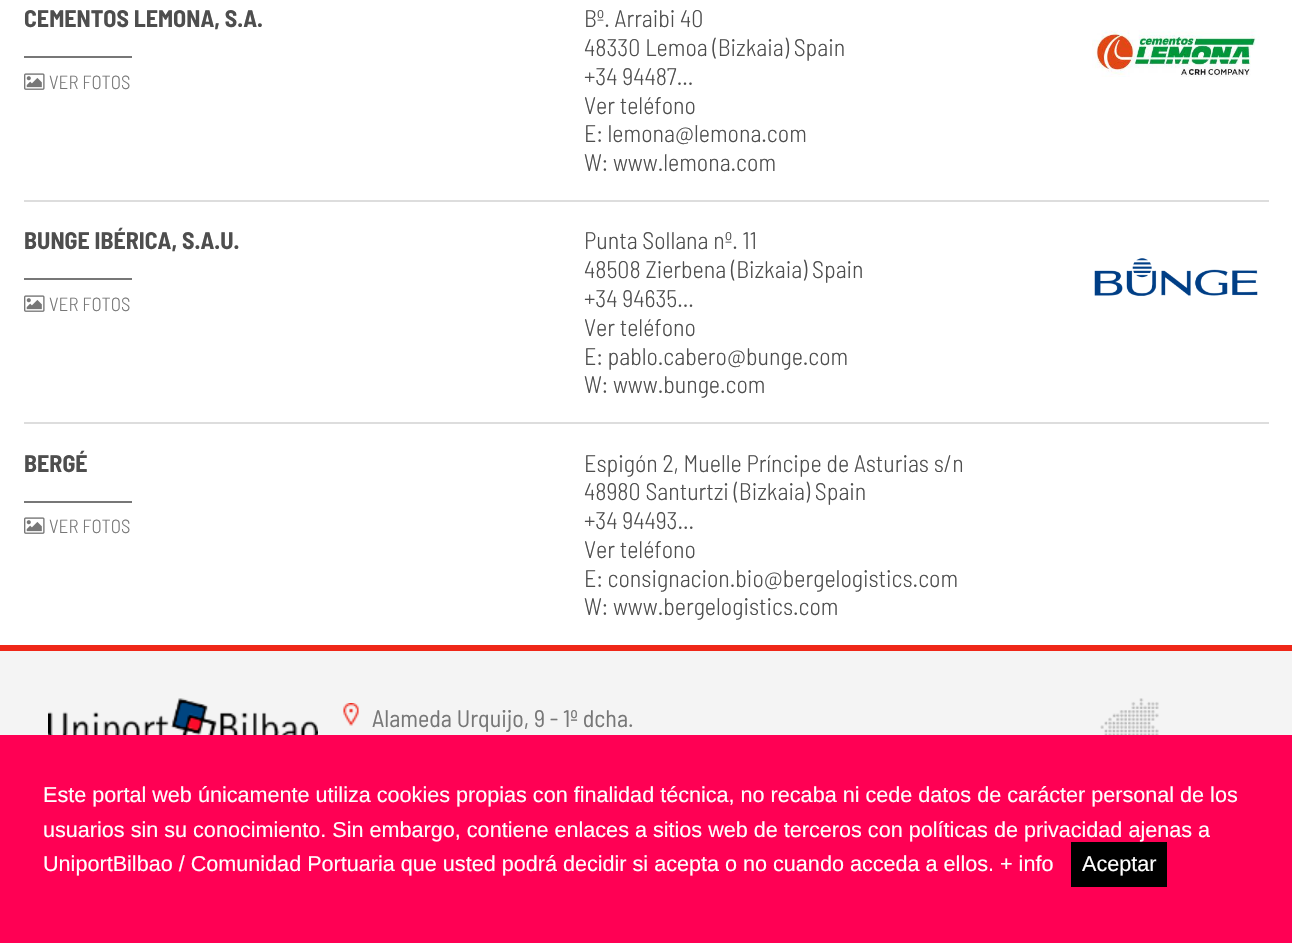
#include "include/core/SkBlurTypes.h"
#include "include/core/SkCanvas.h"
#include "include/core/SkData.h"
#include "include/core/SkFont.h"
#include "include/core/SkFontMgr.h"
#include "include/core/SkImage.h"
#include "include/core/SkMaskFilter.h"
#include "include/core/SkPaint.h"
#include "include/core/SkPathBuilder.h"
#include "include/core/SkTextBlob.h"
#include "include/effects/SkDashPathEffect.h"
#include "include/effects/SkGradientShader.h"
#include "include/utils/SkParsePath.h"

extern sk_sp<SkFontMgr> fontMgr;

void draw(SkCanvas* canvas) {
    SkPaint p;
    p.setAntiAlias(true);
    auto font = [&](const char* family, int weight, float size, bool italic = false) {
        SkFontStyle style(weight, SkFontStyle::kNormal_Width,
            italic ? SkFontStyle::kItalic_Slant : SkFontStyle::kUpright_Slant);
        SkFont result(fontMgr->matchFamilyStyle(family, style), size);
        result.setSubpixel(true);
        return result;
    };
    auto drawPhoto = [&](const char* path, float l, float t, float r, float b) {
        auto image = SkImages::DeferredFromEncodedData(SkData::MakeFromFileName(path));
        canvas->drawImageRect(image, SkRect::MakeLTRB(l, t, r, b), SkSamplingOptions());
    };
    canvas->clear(0xFFFFFFFF);
    auto font1 = font("Barlow Semi Condensed", 700, 24);
    p.setColor(0xFF4E4E4E);
    canvas->drawString("CEMENTOS LEMONA, S.A.", 24, 27, font1, p);
    p.setColor(0xFF777777);
    canvas->drawRect(SkRect::MakeLTRB(24, 56, 132, 58), p);
    drawPhoto("media/1.png", 24, 73, 45, 90);
    auto font2 = font("Barlow Semi Condensed", 300, 19);
    canvas->drawString("VER FOTOS", 49, 89, font2, p);
    auto font3 = font("Barlow Semi Condensed", 300, 24);
    p.setColor(0xFF4E4E4E);
    {
        const struct { const char* s; float x, y; } items[] = {
            {"Bº. Arraibi 40", 584, 27},
            {"48330 Lemoa (Bizkaia) Spain", 584, 56},
            {"+34 94487...", 584, 85},
            {"Ver teléfono", 584, 114},
            {"E: lemona@lemona.com", 584, 142},
            {"W: www.lemona.com", 584, 171},
        };
        for (auto [s, x, y] : items) {
            canvas->drawString(s, x, y, font3, p);
        }
    }
    drawPhoto("media/2.png", 1092, 30, 1260, 77);
    p.setColor(0xFFDDDDDD);
    canvas->drawRect(SkRect::MakeLTRB(24, 200, 1269, 202), p);
    p.setColor(0xFF4E4E4E);
    canvas->drawString("BUNGE IBÉRICA, S.A.U.", 24, 249, font1, p);
    p.setColor(0xFF777777);
    canvas->drawRect(SkRect::MakeLTRB(24, 278, 132, 280), p);
    drawPhoto("media/1.png", 24, 295, 45, 312);
    canvas->drawString("VER FOTOS", 49, 311, font2, p);
    p.setColor(0xFF4E4E4E);
    {
        const struct { const char* s; float x, y; } items[] = {
            {"Punta Sollana nº. 11", 584, 249},
            {"48508 Zierbena (Bizkaia) Spain", 584, 278},
            {"+34 94635...", 584, 307},
            {"Ver teléfono", 584, 336},
            {"E: pablo.cabero@bunge.com", 584, 365},
            {"W: www.bunge.com", 584, 393},
        };
        for (auto [s, x, y] : items) {
            canvas->drawString(s, x, y, font3, p);
        }
    }
    drawPhoto("media/3.png", 1094, 258, 1258, 296);
    p.setColor(0xFFDDDDDD);
    canvas->drawRect(SkRect::MakeLTRB(24, 422, 1269, 424), p);
    p.setColor(0xFF4E4E4E);
    canvas->drawString("BERGÉ", 24, 472, font1, p);
    p.setColor(0xFF777777);
    canvas->drawRect(SkRect::MakeLTRB(24, 501, 132, 503), p);
    drawPhoto("media/1.png", 24, 517, 45, 534);
    canvas->drawString("VER FOTOS", 49, 533, font2, p);
    p.setColor(0xFF4E4E4E);
    {
        const struct { const char* s; float x, y; } items[] = {
            {"Espigón 2, Muelle Príncipe de Asturias s/n", 584, 472},
            {"48980 Santurtzi (Bizkaia) Spain", 584, 500},
            {"+34 94493...", 584, 529},
            {"Ver teléfono", 584, 558},
            {"E: consignacion.bio@bergelogistics.com", 584, 587},
            {"W: www.bergelogistics.com", 584, 615},
        };
        for (auto [s, x, y] : items) {
            canvas->drawString(s, x, y, font3, p);
        }
    }
    p.setColor(0xFFF4F4F4);
    canvas->drawRect(SkRect::MakeLTRB(0, 651, 1292, 735), p);
    p.setColor(0xFFEF2718);
    canvas->drawRect(SkRect::MakeLTRB(0, 645, 1292, 651), p);
    drawPhoto("media/4.png", 48, 698, 318, 735);
    drawPhoto("media/5.png", 343, 703, 359, 726);
    auto font4 = font("Barlow Semi Condensed", 400, 24);
    p.setColor(0xFF777777);
    canvas->drawString("Alameda Urquijo, 9 - 1º dcha.", 372, 727, font4, p);
    drawPhoto("media/6.png", 1100, 698, 1159, 735);
    p.setColor(0xFFFF0054);
    canvas->drawRect(SkRect::MakeLTRB(0, 735, 1292, 943), p);
    auto font5 = font("Liberation Sans", 400, 21.6f);
    p.setColor(0xFFFFFFFF);
    {
        const struct { const char* s; float x, y; } items[] = {
            {"Este portal web únicamente utiliza cookies propias con finalidad técnica, no recaba ni cede datos de carácter personal de los", 43, 802},
            {"usuarios sin su conocimiento. Sin embargo, contiene enlaces a sitios web de terceros con políticas de privacidad ajenas a", 43, 837},
            {"UniportBilbao / Comunidad Portuaria que usted podrá decidir si acepta o no cuando acceda a ellos. + info", 43, 871},
        };
        for (auto [s, x, y] : items) {
            canvas->drawString(s, x, y, font5, p);
        }
    }
    p.setColor(0xFF000000);
    canvas->drawRect(SkRect::MakeLTRB(1071, 842, 1167, 887), p);
    p.setColor(0xFFFFFFFF);
    canvas->drawString("Aceptar", 1082, 871, font5, p);
}
